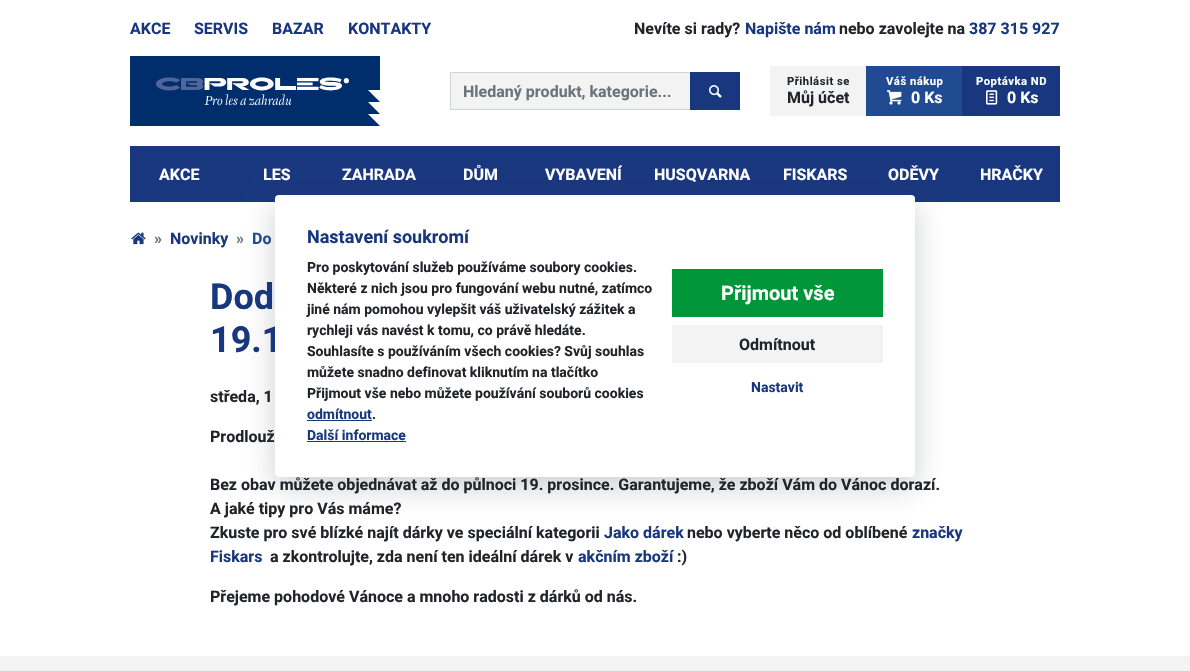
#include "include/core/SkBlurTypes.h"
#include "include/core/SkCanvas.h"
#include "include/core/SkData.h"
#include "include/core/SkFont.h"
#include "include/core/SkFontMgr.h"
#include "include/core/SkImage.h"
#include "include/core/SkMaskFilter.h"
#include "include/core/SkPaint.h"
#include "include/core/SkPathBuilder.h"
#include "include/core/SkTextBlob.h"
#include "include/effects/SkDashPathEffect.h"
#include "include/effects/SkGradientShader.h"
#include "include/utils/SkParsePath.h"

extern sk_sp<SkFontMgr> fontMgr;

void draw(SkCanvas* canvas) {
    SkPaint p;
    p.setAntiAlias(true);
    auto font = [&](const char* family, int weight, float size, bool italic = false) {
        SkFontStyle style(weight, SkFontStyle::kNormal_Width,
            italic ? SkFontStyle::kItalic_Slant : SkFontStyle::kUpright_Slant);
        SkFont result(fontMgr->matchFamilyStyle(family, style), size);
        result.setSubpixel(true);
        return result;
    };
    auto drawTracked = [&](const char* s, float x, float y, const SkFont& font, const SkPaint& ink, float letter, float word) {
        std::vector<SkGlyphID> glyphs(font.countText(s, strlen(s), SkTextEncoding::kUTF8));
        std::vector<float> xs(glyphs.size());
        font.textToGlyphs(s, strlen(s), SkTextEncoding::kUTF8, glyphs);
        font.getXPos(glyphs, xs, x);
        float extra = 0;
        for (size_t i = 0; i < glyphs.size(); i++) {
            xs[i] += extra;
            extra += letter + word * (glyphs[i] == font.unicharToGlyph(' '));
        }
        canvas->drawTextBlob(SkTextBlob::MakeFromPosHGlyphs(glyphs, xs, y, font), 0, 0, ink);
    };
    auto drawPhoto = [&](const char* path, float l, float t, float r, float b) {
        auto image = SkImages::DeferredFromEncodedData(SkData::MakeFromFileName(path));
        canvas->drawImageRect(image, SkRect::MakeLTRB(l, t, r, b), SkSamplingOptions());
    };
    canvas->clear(0xFFFFFFFF);
    auto font1 = font("Roboto", 700, 16);
    p.setColor(0xFF19377F);
    {
        const struct { const char* s; float x, y; } items[] = {
            {"AKCE", 130, 34},
            {"SERVIS", 194, 34},
            {"BAZAR", 272, 34},
            {"KONTAKTY", 348, 34},
        };
        for (auto [s, x, y] : items) {
            canvas->drawString(s, x, y, font1, p);
        }
    }
    p.setColor(0xFF212529);
    canvas->drawString("Nevíte si rady?", 634, 34, font1, p);
    p.setColor(0xFF19377F);
    canvas->drawString("Napište nám", 745, 34, font1, p);
    p.setColor(0xFF212529);
    canvas->drawString("nebo zavolejte na", 839, 34, font1, p);
    p.setColor(0xFF19377F);
    canvas->drawString("387 315 927", 969, 34, font1, p);
    drawPhoto("media/1.png", 130, 56, 380, 126);
    p.setColor(0xFFF3F3F3);
    canvas->drawRect(SkRect::MakeLTRB(450.5f, 72.5f, 690.5f, 109.5f), p);
    p.setStyle(SkPaint::kStroke_Style);
    p.setStrokeWidth(1);
    p.setColor(0xFFCED4DA);
    canvas->drawRect(SkRect::MakeLTRB(450.5f, 72.5f, 690.5f, 109.5f), p);
    p.setStyle(SkPaint::kFill_Style);
    p.setColor(0xFF6C757D);
    canvas->drawString("Hledaný produkt, kategorie...", 463, 97, font1, p);
    p.setColor(0xFF19377F);
    canvas->drawRect(SkRect::MakeLTRB(690, 72, 740, 110), p);
    drawPhoto("media/2.png", 709, 85, 722, 98);
    p.setColor(0xFFF3F3F3);
    canvas->drawRect(SkRect::MakeLTRB(770, 66, 866, 116), p);
    auto font2 = font("Roboto", 700, 11.25f);
    p.setColor(0xFF212529);
    drawTracked("Přihlásit se", 787, 85, font2, p, 0.5f, 0);
    canvas->drawString("Můj účet", 787, 103, font1, p);
    p.setColor(0xFF204A92);
    canvas->drawRect(SkRect::MakeLTRB(866, 66, 962, 116), p);
    p.setColor(0xFFFFFFFF);
    drawTracked("Váš nákup", 886, 85, font2, p, 0.5f, 0);
    drawPhoto("media/3.png", 887, 90, 902, 105);
    canvas->drawString("0 Ks", 911, 103, font1, p);
    p.setColor(0xFF19377F);
    canvas->drawRect(SkRect::MakeLTRB(962, 66, 1060, 116), p);
    p.setColor(0xFFFFFFFF);
    drawTracked("Poptávka ND", 976, 85, font2, p, 0.5f, 0);
    drawPhoto("media/4.png", 986, 90, 998, 105);
    canvas->drawString("0 Ks", 1007, 103, font1, p);
    p.setColor(0xFF19377F);
    canvas->drawRect(SkRect::MakeLTRB(130, 146, 1060, 202), p);
    p.setColor(0xFFFFFFFF);
    {
        const struct { const char* s; float x, y; } items[] = {
            {"AKCE", 159, 180},
            {"LES", 263, 180},
            {"ZAHRADA", 342, 180},
            {"DŮM", 463, 180},
            {"VYBAVENÍ", 545, 180},
            {"HUSQVARNA", 654, 180},
            {"FISKARS", 783, 180},
            {"ODĚVY", 888, 180},
            {"HRAČKY", 980, 180},
        };
        for (auto [s, x, y] : items) {
            canvas->drawString(s, x, y, font1, p);
        }
    }
    p.setColor(0x40343A40);
    p.setMaskFilter(SkMaskFilter::MakeBlur(kNormal_SkBlurStyle, 15));
    canvas->drawRoundRect(SkRect::MakeLTRB(275, 205, 915, 487), 4, 4, p);
    p.setMaskFilter(nullptr);
    auto font3 = font("Roboto", 700, 36);
    p.setColor(0xFF19377F);
    canvas->drawString("19.1", 210, 352, font3, p);
    p.setColor(0xFFFFFFFF);
    canvas->drawRoundRect(SkRect::MakeLTRB(275, 195, 915, 477), 4, 4, p);
    auto font4 = font("Roboto", 700, 18);
    p.setColor(0xFF19377F);
    canvas->drawString("Nastavení soukromí", 307, 243, font4, p);
    auto font5 = font("Roboto", 700, 14);
    p.setColor(0xFF212529);
    {
        const struct { const char* s; float x, y; } items[] = {
            {"Pro poskytování služeb používáme soubory cookies.", 307, 272},
            {"Některé z nich jsou pro fungování webu nutné, zatímco", 307, 293},
            {"jiné nám pomohou vylepšit váš uživatelský zážitek a", 307, 314},
            {"rychleji vás navést k tomu, co právě hledáte.", 307, 335},
            {"Souhlasíte s používáním všech cookies? Svůj souhlas", 307, 356},
            {"můžete snadno definovat kliknutím na tlačítko", 307, 377},
            {"Přijmout vše nebo můžete používání souborů cookies", 307, 398},
        };
        for (auto [s, x, y] : items) {
            canvas->drawString(s, x, y, font5, p);
        }
    }
    p.setColor(0xFF19377F);
    canvas->drawString("odmítnout", 307, 419, font5, p);
    canvas->drawRect(SkRect::MakeLTRB(307, 420, 372, 421), p);
    p.setColor(0xFF212529);
    canvas->drawString(".", 372, 419, font5, p);
    p.setColor(0xFF19377F);
    canvas->drawString("Další informace", 307, 440, font5, p);
    canvas->drawRect(SkRect::MakeLTRB(307, 441, 406, 442), p);
    p.setColor(0xFF009639);
    canvas->drawRect(SkRect::MakeLTRB(672, 269, 883, 317), p);
    auto font6 = font("Roboto", 700, 20);
    p.setColor(0xFFFFFFFF);
    canvas->drawString("Přijmout vše", 721, 300, font6, p);
    p.setColor(0xFFF3F3F3);
    canvas->drawRect(SkRect::MakeLTRB(672, 325, 883, 363), p);
    p.setColor(0xFF212529);
    canvas->drawString("Odmítnout", 739, 350, font1, p);
    p.setColor(0xFF19377F);
    canvas->drawString("Nastavit", 751, 392, font5, p);
    drawPhoto("media/5.png", 131, 232, 146, 245);
    p.setColor(0xFF6C757D);
    canvas->drawString("»", 154, 244, font1, p);
    p.setColor(0xFF19377F);
    canvas->drawString("Novinky", 170, 244, font1, p);
    p.setColor(0xFF6C757D);
    canvas->drawString("»", 236, 244, font1, p);
    p.setColor(0xFF204A92);
    canvas->drawString("Do", 252, 244, font1, p);
    p.setColor(0xFF19377F);
    canvas->drawString("Dod", 210, 309, font3, p);
    p.setColor(0xFF212529);
    {
        const struct { const char* s; float x, y; } items[] = {
            {"středa, 1", 210, 402},
            {"Prodlouž", 210, 442},
            {"Bez obav můžete objednávat až do půlnoci 19. prosince. Garantujeme, že zboží Vám do Vánoc dorazí.", 210, 490},
            {"A jaké tipy pro Vás máme?", 210, 514},
            {"Zkuste pro své blízké najít dárky ve speciální kategorii", 210, 538},
        };
        for (auto [s, x, y] : items) {
            canvas->drawString(s, x, y, font1, p);
        }
    }
    p.setColor(0xFF19377F);
    canvas->drawString("Jako dárek", 604, 538, font1, p);
    p.setColor(0xFF212529);
    canvas->drawString("nebo vyberte něco od oblíbené", 687, 538, font1, p);
    p.setColor(0xFF19377F);
    canvas->drawString("značky", 912, 538, font1, p);
    canvas->drawString("Fiskars", 210, 562, font1, p);
    p.setColor(0xFF212529);
    canvas->drawString("a zkontrolujte, zda není ten ideální dárek v", 270, 562, font1, p);
    p.setColor(0xFF19377F);
    canvas->drawString("akčním zboží", 578, 562, font1, p);
    p.setColor(0xFF212529);
    canvas->drawString(":)", 677, 562, font1, p);
    canvas->drawString("Přejeme pohodové Vánoce a mnoho radosti z dárků od nás.", 210, 602, font1, p);
    p.setColor(0xFFF3F3F3);
    canvas->drawRect(SkRect::MakeLTRB(0, 656, 1190, 671), p);
}
